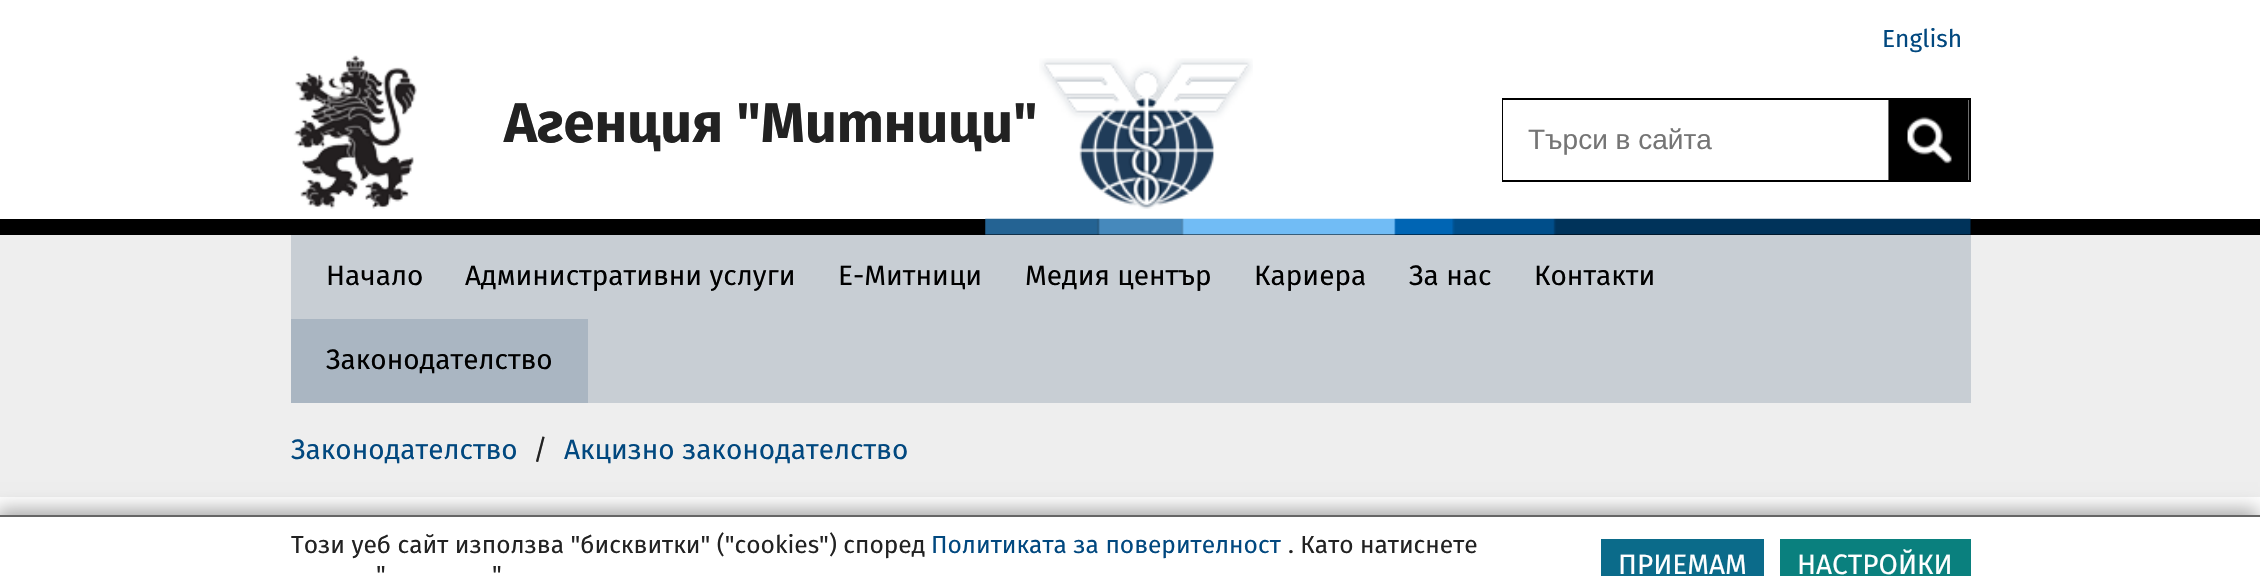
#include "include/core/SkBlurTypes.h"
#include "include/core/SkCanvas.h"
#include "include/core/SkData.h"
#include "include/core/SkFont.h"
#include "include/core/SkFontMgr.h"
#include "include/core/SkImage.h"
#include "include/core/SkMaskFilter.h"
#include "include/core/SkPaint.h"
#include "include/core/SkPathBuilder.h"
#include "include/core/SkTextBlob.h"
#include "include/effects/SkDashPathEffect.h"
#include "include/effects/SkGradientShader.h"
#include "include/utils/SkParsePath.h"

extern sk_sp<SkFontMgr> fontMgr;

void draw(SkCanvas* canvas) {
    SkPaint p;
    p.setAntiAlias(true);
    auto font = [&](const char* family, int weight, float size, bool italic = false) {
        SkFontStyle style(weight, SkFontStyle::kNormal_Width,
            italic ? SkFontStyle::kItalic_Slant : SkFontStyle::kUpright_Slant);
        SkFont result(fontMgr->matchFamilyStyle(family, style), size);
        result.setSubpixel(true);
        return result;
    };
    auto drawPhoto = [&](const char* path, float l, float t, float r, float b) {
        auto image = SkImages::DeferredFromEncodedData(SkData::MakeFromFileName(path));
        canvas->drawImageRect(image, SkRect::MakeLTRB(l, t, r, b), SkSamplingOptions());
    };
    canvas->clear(0xFFFFFFFF);
    auto font1 = font("Fira Sans", 400, 24.5f);
    p.setColor(0xFF01487F);
    canvas->drawString("English", 1882, 47, font1, p);
    drawPhoto("media/1.png", 293, 55, 417, 209);
    auto font2 = font("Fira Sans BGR", 700, 56);
    p.setColor(0xFF222222);
    canvas->drawString("Агенция \"Митници\"", 504, 142, font2, p);
    drawPhoto("media/2.png", 1039, 58, 1253, 209);
    p.setStyle(SkPaint::kStroke_Style);
    p.setStrokeWidth(2);
    p.setColor(0xFF000000);
    canvas->drawRect(SkRect::MakeLTRB(1503, 99, 1970, 181), p);
    p.setStyle(SkPaint::kFill_Style);
    p.setColor(0xFFFFFFFF);
    canvas->drawRect(SkRect::MakeLTRB(1503, 100, 1504, 180), p);
    auto font3 = font("Liberation Sans", 400, 28);
    p.setColor(0xFF757575);
    canvas->drawString("Търси в сайта", 1528, 149, font3, p);
    drawPhoto("media/3.png", 1888, 100, 1969, 180);
    p.setColor(0xFF000000);
    canvas->drawRect(SkRect::MakeLTRB(0, 219, 2260, 235), p);
    drawPhoto("media/4.png", 985, 218, 1971, 235);
    p.setColor(0xFFEEEEEE);
    canvas->drawRect(SkRect::MakeLTRB(0, 235, 2260, 497), p);
    p.setColor(0xFFC8CED4);
    canvas->drawRect(SkRect::MakeLTRB(291, 235, 1971, 403), p);
    auto font4 = font("Fira Sans", 400, 28);
    p.setColor(0xFF000000);
    {
        const struct { const char* s; float x, y; } items[] = {
            {"Начало", 326, 285},
            {"Административни услуги", 465, 285},
            {"Е-Митници", 838, 285},
            {"Медия център", 1025, 285},
            {"Кариера", 1254, 285},
            {"За нас", 1409, 285},
            {"Контакти", 1534, 285},
        };
        for (auto [s, x, y] : items) {
            canvas->drawString(s, x, y, font4, p);
        }
    }
    p.setColor(0xFFAAB6C2);
    canvas->drawRect(SkRect::MakeLTRB(291, 319, 588, 403), p);
    p.setColor(0xFF000000);
    canvas->drawString("Законодателство", 326, 369, font4, p);
    p.setColor(0xFF01487F);
    canvas->drawString("Законодателство", 291, 459, font4, p);
    p.setColor(0xFF222222);
    canvas->drawString("/", 533, 459, font4, p);
    p.setColor(0xFF01487F);
    canvas->drawString("Акцизно законодателство", 564, 459, font4, p);
    p.setColor(0xFFAAAAAA);
    p.setMaskFilter(SkMaskFilter::MakeBlur(kNormal_SkBlurStyle, 9));
    canvas->drawRect(SkRect::MakeLTRB(-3, 509, 2258, 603), p);
    p.setMaskFilter(nullptr);
    p.setColor(0xFFFFFFFF);
    canvas->drawRect(SkRect::MakeLTRB(0, 517, 2260, 576), p);
    p.setColor(0xFF666666);
    canvas->drawRect(SkRect::MakeLTRB(0, 515, 2260, 517), p);
    p.setColor(0xFF222222);
    canvas->drawString("Този уеб сайт използва \"бисквитки\" (\"cookies\") според", 291, 553, font1, p);
    p.setColor(0xFF01487F);
    canvas->drawString("Политиката за поверителност", 931, 553, font1, p);
    p.setColor(0xFF222222);
    {
        const struct { const char* s; float x, y; } items[] = {
            {". Като натиснете", 1288, 553},
            {"\"", 376, 583},
            {"\"", 492, 583},
        };
        for (auto [s, x, y] : items) {
            canvas->drawString(s, x, y, font1, p);
        }
    }
    p.setColor(0xFF0B6B8A);
    canvas->drawRect(SkRect::MakeLTRB(1601, 539, 1764, 576), p);
    p.setColor(0xFFFFFFFF);
    canvas->drawString("ПРИЕМАМ", 1618, 574, font4, p);
    p.setColor(0xFF0A807E);
    canvas->drawRect(SkRect::MakeLTRB(1780, 539, 1971, 576), p);
    p.setColor(0xFFFFFFFF);
    canvas->drawString("НАСТРОЙКИ", 1797, 574, font4, p);
}
